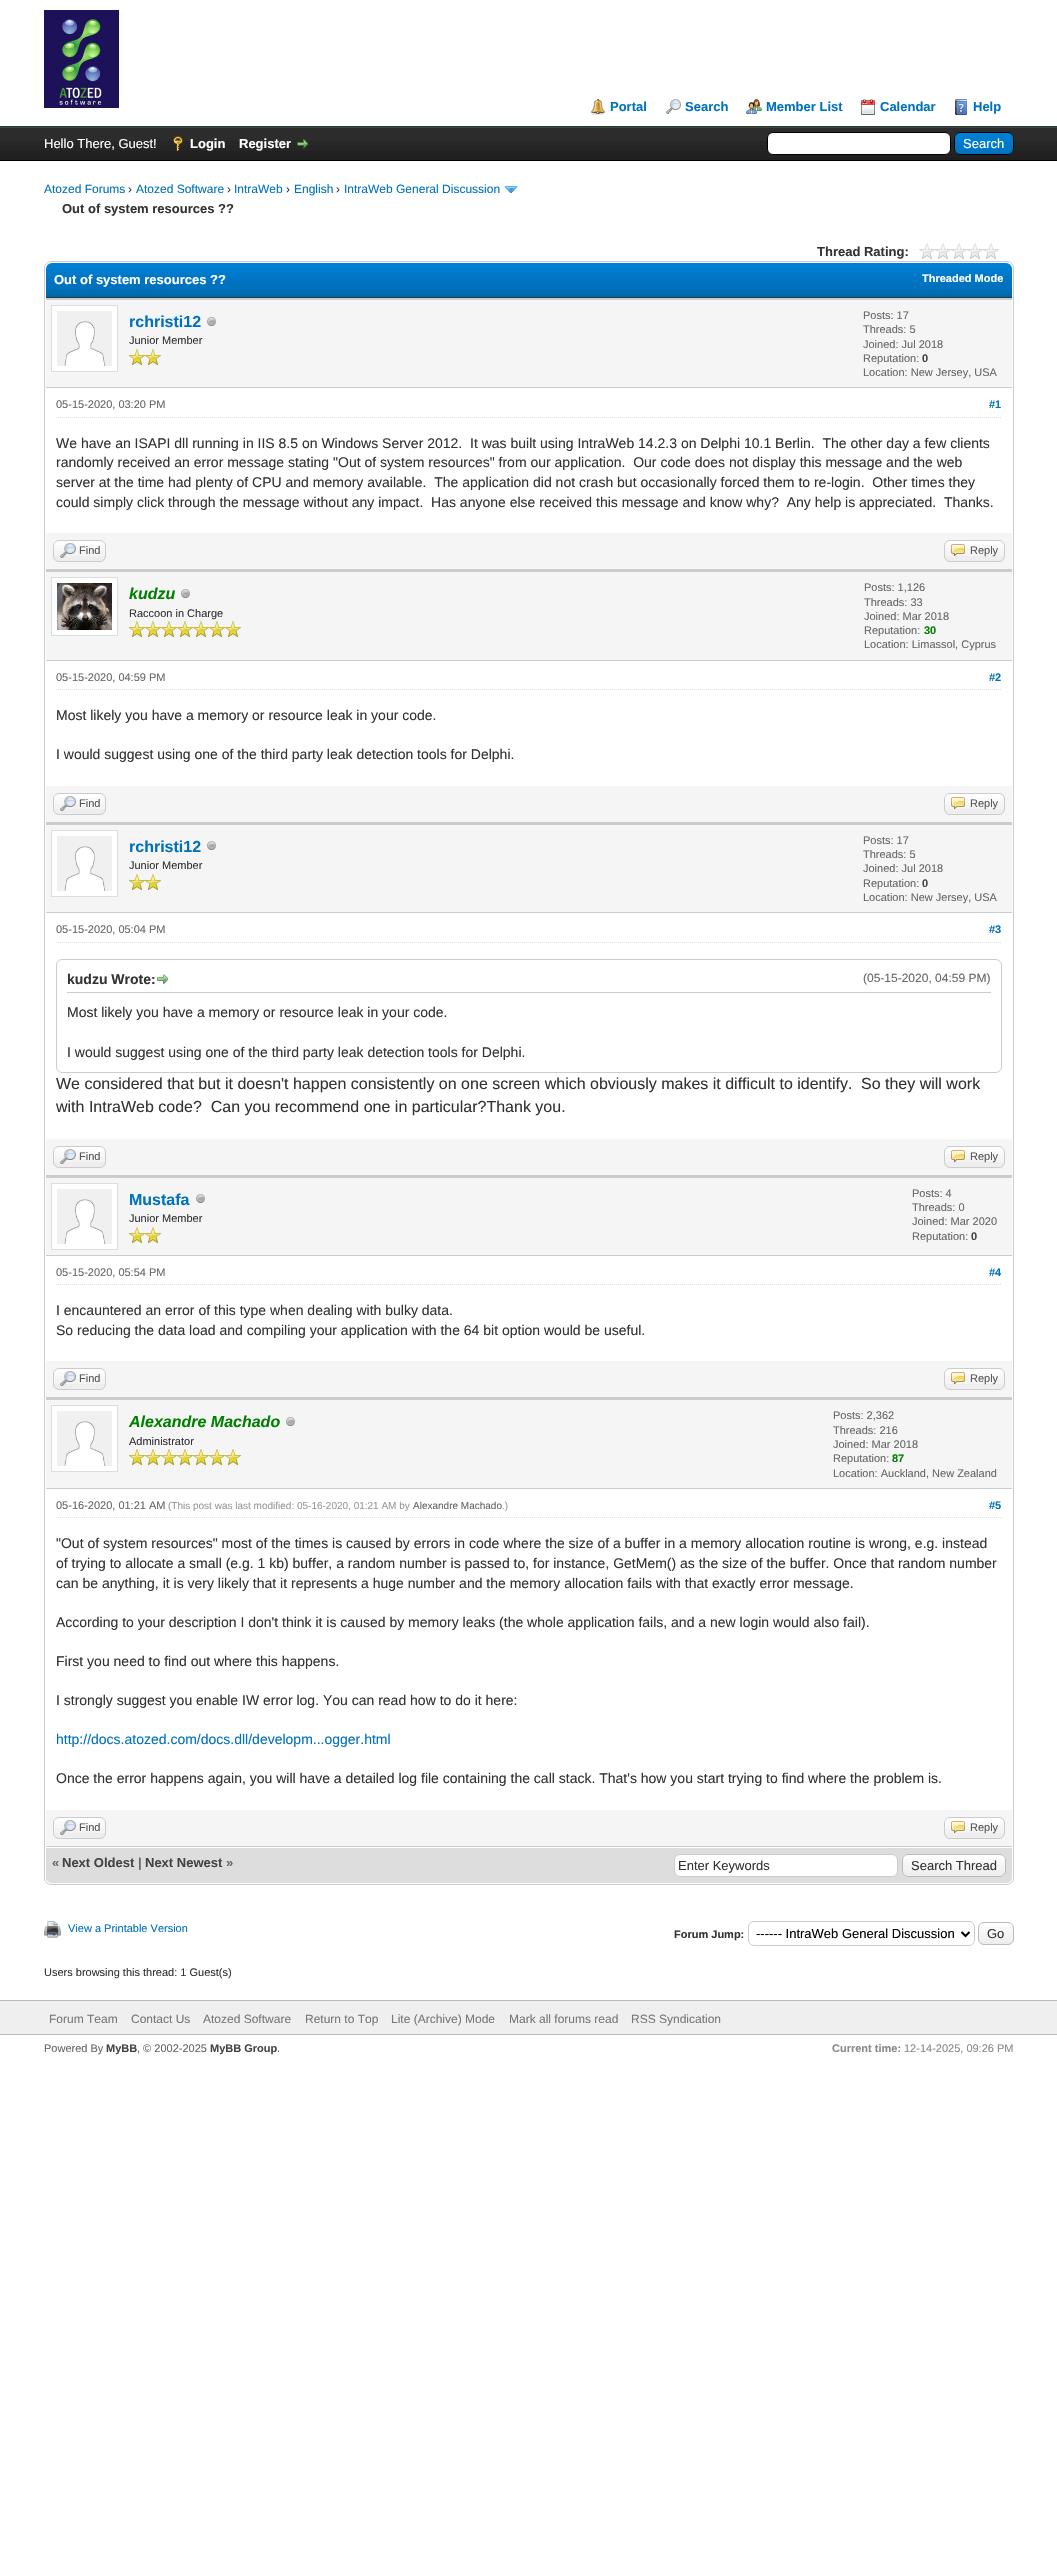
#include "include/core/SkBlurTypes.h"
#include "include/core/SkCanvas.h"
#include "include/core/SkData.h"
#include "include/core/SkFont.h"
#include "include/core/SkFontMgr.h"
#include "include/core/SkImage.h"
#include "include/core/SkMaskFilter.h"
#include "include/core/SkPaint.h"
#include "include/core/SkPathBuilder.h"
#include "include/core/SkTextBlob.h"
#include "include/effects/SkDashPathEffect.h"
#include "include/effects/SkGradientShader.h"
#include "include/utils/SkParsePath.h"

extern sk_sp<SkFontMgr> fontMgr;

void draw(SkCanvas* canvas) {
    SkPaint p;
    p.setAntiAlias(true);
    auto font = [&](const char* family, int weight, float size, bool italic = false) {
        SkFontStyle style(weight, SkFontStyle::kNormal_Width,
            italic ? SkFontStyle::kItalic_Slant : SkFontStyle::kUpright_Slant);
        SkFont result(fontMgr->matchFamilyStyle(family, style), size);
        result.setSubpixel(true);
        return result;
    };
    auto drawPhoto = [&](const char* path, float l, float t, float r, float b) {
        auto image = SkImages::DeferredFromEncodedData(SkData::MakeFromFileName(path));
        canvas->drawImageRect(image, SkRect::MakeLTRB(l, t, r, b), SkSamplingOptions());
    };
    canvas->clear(0xFFFFFFFF);
    p.setColor(0xFF263C30);
    canvas->drawRect(SkRect::MakeLTRB(0, 126, 1057, 127), p);
    drawPhoto("media/1.png", 44, 10, 119, 108);
    drawPhoto("media/2.png", 591, 99, 605, 115);
    auto font1 = font("Liberation Sans", 700, 13);
    p.setColor(0xFF0072BC);
    canvas->drawString("Portal", 610, 111, font1, p);
    drawPhoto("media/3.png", 666, 99, 681, 114);
    canvas->drawString("Search", 685, 111, font1, p);
    drawPhoto("media/4.png", 746, 99, 762, 114);
    canvas->drawString("Member List", 766, 111, font1, p);
    drawPhoto("media/5.png", 861, 99, 875, 115);
    canvas->drawString("Calendar", 880, 111, font1, p);
    drawPhoto("media/6.png", 955, 99, 967, 115);
    canvas->drawString("Help", 973, 111, font1, p);
    drawPhoto("media/7.png", 0, 128, 1057, 160);
    p.setColor(0xFF444444);
    canvas->drawRect(SkRect::MakeLTRB(0, 127, 1057, 128), p);
    p.setColor(0xFF000000);
    canvas->drawRect(SkRect::MakeLTRB(0, 160, 1057, 161), p);
    auto font2 = font("Liberation Sans", 400, 13);
    p.setColor(0xFFFFFFFF);
    canvas->drawString("Hello There, Guest!", 44, 148, font2, p);
    drawPhoto("media/8.png", 173, 136, 183, 151);
    canvas->drawString("Login", 190, 148, font1, p);
    canvas->drawString("Register", 239, 148, font1, p);
    drawPhoto("media/9.png", 297, 139, 309, 149);
    canvas->drawRoundRect(SkRect::MakeLTRB(767.5f, 132.5f, 950.5f, 154.5f), 5.5f, 5.5f, p);
    p.setStyle(SkPaint::kStroke_Style);
    p.setStrokeWidth(1);
    p.setColor(0xFF000000);
    canvas->drawRoundRect(SkRect::MakeLTRB(767.5f, 132.5f, 950.5f, 154.5f), 5.5f, 5.5f, p);
    drawPhoto("media/10.png", 954, 133, 1014, 155);
    canvas->drawRoundRect(SkRect::MakeLTRB(954.5f, 132.5f, 1013.5f, 154.5f), 5.5f, 5.5f, p);
    p.setStyle(SkPaint::kFill_Style);
    p.setColor(0xFFFFFFFF);
    canvas->drawString("Search", 963, 148, font2, p);
    auto font3 = font("Liberation Sans", 400, 12);
    p.setColor(0xFF0072BC);
    canvas->drawString("Atozed Forums", 44, 193, font3, p);
    p.setColor(0xFF333333);
    canvas->drawString("›", 128, 193, font3, p);
    p.setColor(0xFF0072BC);
    canvas->drawString("Atozed Software", 136, 193, font3, p);
    p.setColor(0xFF333333);
    canvas->drawString("›", 227, 193, font3, p);
    p.setColor(0xFF0072BC);
    canvas->drawString("IntraWeb", 234, 193, font3, p);
    p.setColor(0xFF333333);
    canvas->drawString("›", 286, 193, font3, p);
    p.setColor(0xFF0072BC);
    canvas->drawString("English", 294, 193, font3, p);
    p.setColor(0xFF333333);
    canvas->drawString("›", 336, 193, font3, p);
    p.setColor(0xFF0072BC);
    canvas->drawString("IntraWeb General Discussion", 344, 193, font3, p);
    drawPhoto("media/11.png", 504, 186, 518, 193);
    p.setColor(0xFF333333);
    canvas->drawString("Out of system resources ?\077", 62, 213, font1, p);
    canvas->drawString("Thread Rating:", 817, 256, font1, p);
    drawPhoto("media/12.png", 919, 243, 999, 259);
    p.setStyle(SkPaint::kStroke_Style);
    p.setColor(0xFFCCCCCC);
    canvas->drawRoundRect(SkRect::MakeLTRB(44.5f, 261.5f, 1013.5f, 1884.5f), 6.5f, 6.5f, p);
    drawPhoto("media/13.png", 46, 263, 1012, 297);
    p.setStyle(SkPaint::kFill_Style);
    p.setColor(0xFF263C30);
    canvas->drawRect(SkRect::MakeLTRB(46, 297, 1012, 298), p);
    p.setColor(0xFFFFFFFF);
    canvas->drawString("Out of system resources ?\077", 54, 284, font1, p);
    auto font4 = font("Liberation Sans", 700, 11);
    canvas->drawString("Threaded Mode", 922, 282, font4, p);
    {
        const struct { float l, t, r, b; SkColor color; } items[] = {
            {46, 300, 1012, 387, 0xFFF5F5F5},
            {46, 298, 1012, 300, 0xFFCCCCCC},
            {46, 387, 1012, 388, 0xFFCCCCCC},
        };
        for (auto [l, t, r, b, color] : items) {
            p.setColor(color);
            canvas->drawRect(SkRect::MakeLTRB(l, t, r, b), p);
        }
    }
    p.setColor(0xFFFFFFFF);
    canvas->drawRect(SkRect::MakeLTRB(51.5f, 305.5f, 117.5f, 371.5f), p);
    p.setStyle(SkPaint::kStroke_Style);
    p.setColor(0xFFDDDDDD);
    canvas->drawRect(SkRect::MakeLTRB(51.5f, 305.5f, 117.5f, 371.5f), p);
    drawPhoto("media/14.png", 57, 311, 112, 366);
    auto font5 = font("Liberation Sans", 700, 16);
    p.setStyle(SkPaint::kFill_Style);
    p.setColor(0xFF0072BC);
    canvas->drawString("rchristi12", 129, 327, font5, p);
    drawPhoto("media/15.png", 207, 317, 216, 326);
    auto font6 = font("Liberation Sans", 400, 11);
    p.setColor(0xFF333333);
    canvas->drawString("Junior Member", 129, 344, font6, p);
    drawPhoto("media/16.png", 129, 349, 145, 365);
    drawPhoto("media/16.png", 145, 349, 161, 365);
    p.setColor(0xFF666666);
    {
        const struct { const char* s; float x, y; } items[] = {
            {"Posts: 17", 863, 319},
            {"Threads: 5", 863, 333},
            {"Joined: Jul 2018", 863, 348},
            {"Reputation:", 863, 362},
        };
        for (auto [s, x, y] : items) {
            canvas->drawString(s, x, y, font6, p);
        }
    }
    p.setColor(0xFF444444);
    canvas->drawString("0", 922, 362, font4, p);
    p.setColor(0xFF666666);
    canvas->drawString("Location: New Jersey, USA", 863, 376, font6, p);
    p.setStyle(SkPaint::kStroke_Style);
    p.setColor(0xFFDDDDDD);
    p.setPathEffect(SkDashPathEffect::Make({{1, 1}}, 0));
    canvas->drawPath(SkPathBuilder().moveTo(56, 417.5f).lineTo(1002, 417.5f).detach(), p);
    p.setPathEffect(nullptr);
    p.setStyle(SkPaint::kFill_Style);
    p.setColor(0xFF666666);
    canvas->drawString("05-15-2020, 03:20 PM", 56, 408, font6, p);
    p.setColor(0xFF0072BC);
    canvas->drawString("#1", 989, 408, font4, p);
    auto font7 = font("Liberation Sans", 400, 14);
    p.setColor(0xFF333333);
    {
        const struct { const char* s; float x, y; } items[] = {
            {"We have an ISAPI dll running in IIS 8.5 on Windows Server 2012.  It was built using IntraWeb 14.2.3 on Delphi 10.1 Berlin.  The other day a few clients", 56, 448},
            {"randomly received an error message stating \"Out of system resources\" from our application.  Our code does not display this message and the web", 56, 467},
            {"server at the time had plenty of CPU and memory available.  The application did not crash but occasionally forced them to re-login.  Other times they", 56, 487},
            {"could simply click through the message without any impact.  Has anyone else received this message and know why?  Any help is appreciated.  Thanks.", 56, 507},
        };
        for (auto [s, x, y] : items) {
            canvas->drawString(s, x, y, font7, p);
        }
    }
    p.setColor(0xFFF5F5F5);
    canvas->drawRect(SkRect::MakeLTRB(46, 533, 1012, 569), p);
    p.setColor(0xFFCCCCCC);
    canvas->drawRect(SkRect::MakeLTRB(46, 569, 1012, 572), p);
    p.setColor(0xFFEEEEEE);
    canvas->drawRoundRect(SkRect::MakeLTRB(53, 540, 106, 562), 6, 6, p);
    drawPhoto("media/17.png", 53, 541, 106, 556);
    p.setStyle(SkPaint::kStroke_Style);
    p.setColor(0xFFCCCCCC);
    canvas->drawRoundRect(SkRect::MakeLTRB(53.5f, 540.5f, 105.5f, 561.5f), 5.5f, 5.5f, p);
    drawPhoto("media/18.png", 60, 543, 76, 558);
    p.setStyle(SkPaint::kFill_Style);
    p.setColor(0xFF555555);
    canvas->drawString("Find", 79, 554, font6, p);
    p.setColor(0xFFEEEEEE);
    canvas->drawRoundRect(SkRect::MakeLTRB(944, 540, 1005, 562), 6, 6, p);
    drawPhoto("media/19.png", 944, 541, 1005, 556);
    p.setStyle(SkPaint::kStroke_Style);
    p.setColor(0xFFCCCCCC);
    canvas->drawRoundRect(SkRect::MakeLTRB(944.5f, 540.5f, 1004.5f, 561.5f), 5.5f, 5.5f, p);
    drawPhoto("media/20.png", 951, 544, 965, 556);
    p.setStyle(SkPaint::kFill_Style);
    p.setColor(0xFF555555);
    canvas->drawString("Reply", 970, 554, font6, p);
    p.setColor(0xFFF5F5F5);
    canvas->drawRect(SkRect::MakeLTRB(46, 572, 1012, 660), p);
    p.setColor(0xFFCCCCCC);
    canvas->drawRect(SkRect::MakeLTRB(46, 660, 1012, 661), p);
    p.setColor(0xFFFFFFFF);
    canvas->drawRect(SkRect::MakeLTRB(51.5f, 577.5f, 117.5f, 635.5f), p);
    p.setStyle(SkPaint::kStroke_Style);
    p.setColor(0xFFDDDDDD);
    canvas->drawRect(SkRect::MakeLTRB(51.5f, 577.5f, 117.5f, 635.5f), p);
    drawPhoto("media/21.png", 57, 583, 112, 630);
    auto font8 = font("Liberation Sans", 700, 16, true);
    p.setStyle(SkPaint::kFill_Style);
    p.setColor(0xFF008000);
    canvas->drawString("kudzu", 129, 599, font8, p);
    drawPhoto("media/15.png", 181, 589, 190, 598);
    p.setColor(0xFF333333);
    canvas->drawString("Raccoon in Charge", 129, 617, font6, p);
    drawPhoto("media/16.png", 129, 621, 145, 637);
    drawPhoto("media/16.png", 145, 621, 161, 637);
    drawPhoto("media/16.png", 161, 621, 177, 637);
    drawPhoto("media/16.png", 177, 621, 193, 637);
    drawPhoto("media/16.png", 193, 621, 209, 637);
    drawPhoto("media/16.png", 209, 621, 225, 637);
    drawPhoto("media/16.png", 225, 621, 241, 637);
    p.setColor(0xFF666666);
    {
        const struct { const char* s; float x, y; } items[] = {
            {"Posts: 1,126", 864, 591},
            {"Threads: 33", 864, 606},
            {"Joined: Mar 2018", 864, 620},
            {"Reputation:", 864, 634},
        };
        for (auto [s, x, y] : items) {
            canvas->drawString(s, x, y, font6, p);
        }
    }
    p.setColor(0xFF008000);
    canvas->drawString("30", 924, 634, font4, p);
    p.setColor(0xFF666666);
    canvas->drawString("Location: Limassol, Cyprus", 864, 648, font6, p);
    p.setStyle(SkPaint::kStroke_Style);
    p.setColor(0xFFDDDDDD);
    p.setPathEffect(SkDashPathEffect::Make({{1, 1}}, 0));
    canvas->drawPath(SkPathBuilder().moveTo(56, 689.5f).lineTo(1002, 689.5f).detach(), p);
    p.setPathEffect(nullptr);
    p.setStyle(SkPaint::kFill_Style);
    p.setColor(0xFF666666);
    canvas->drawString("05-15-2020, 04:59 PM", 56, 681, font6, p);
    p.setColor(0xFF0072BC);
    canvas->drawString("#2", 989, 681, font4, p);
    p.setColor(0xFF333333);
    canvas->drawString("Most likely you have a memory or resource leak in your code.", 56, 720, font7, p);
    canvas->drawString("I would suggest using one of the third party leak detection tools for Delphi.", 56, 759, font7, p);
    p.setColor(0xFFF5F5F5);
    canvas->drawRect(SkRect::MakeLTRB(46, 786, 1012, 822), p);
    p.setColor(0xFFCCCCCC);
    canvas->drawRect(SkRect::MakeLTRB(46, 822, 1012, 825), p);
    p.setColor(0xFFEEEEEE);
    canvas->drawRoundRect(SkRect::MakeLTRB(53, 793, 106, 815), 6, 6, p);
    drawPhoto("media/17.png", 53, 794, 106, 809);
    p.setStyle(SkPaint::kStroke_Style);
    p.setColor(0xFFCCCCCC);
    canvas->drawRoundRect(SkRect::MakeLTRB(53.5f, 793.5f, 105.5f, 814.5f), 5.5f, 5.5f, p);
    drawPhoto("media/18.png", 60, 796, 76, 811);
    p.setStyle(SkPaint::kFill_Style);
    p.setColor(0xFF555555);
    canvas->drawString("Find", 79, 807, font6, p);
    p.setColor(0xFFEEEEEE);
    canvas->drawRoundRect(SkRect::MakeLTRB(944, 793, 1005, 815), 6, 6, p);
    drawPhoto("media/19.png", 944, 794, 1005, 809);
    p.setStyle(SkPaint::kStroke_Style);
    p.setColor(0xFFCCCCCC);
    canvas->drawRoundRect(SkRect::MakeLTRB(944.5f, 793.5f, 1004.5f, 814.5f), 5.5f, 5.5f, p);
    drawPhoto("media/20.png", 951, 797, 965, 809);
    p.setStyle(SkPaint::kFill_Style);
    p.setColor(0xFF555555);
    canvas->drawString("Reply", 970, 807, font6, p);
    p.setColor(0xFFF5F5F5);
    canvas->drawRect(SkRect::MakeLTRB(46, 825, 1012, 912), p);
    p.setColor(0xFFCCCCCC);
    canvas->drawRect(SkRect::MakeLTRB(46, 912, 1012, 913), p);
    p.setColor(0xFFFFFFFF);
    canvas->drawRect(SkRect::MakeLTRB(51.5f, 830.5f, 117.5f, 896.5f), p);
    p.setStyle(SkPaint::kStroke_Style);
    p.setColor(0xFFDDDDDD);
    canvas->drawRect(SkRect::MakeLTRB(51.5f, 830.5f, 117.5f, 896.5f), p);
    drawPhoto("media/22.png", 57, 836, 112, 891);
    p.setStyle(SkPaint::kFill_Style);
    p.setColor(0xFF0072BC);
    canvas->drawString("rchristi12", 129, 852, font5, p);
    drawPhoto("media/15.png", 207, 841, 216, 850);
    p.setColor(0xFF333333);
    canvas->drawString("Junior Member", 129, 869, font6, p);
    drawPhoto("media/16.png", 129, 874, 145, 890);
    drawPhoto("media/16.png", 145, 874, 161, 890);
    p.setColor(0xFF666666);
    {
        const struct { const char* s; float x, y; } items[] = {
            {"Posts: 17", 863, 844},
            {"Threads: 5", 863, 858},
            {"Joined: Jul 2018", 863, 872},
            {"Reputation:", 863, 887},
        };
        for (auto [s, x, y] : items) {
            canvas->drawString(s, x, y, font6, p);
        }
    }
    p.setColor(0xFF444444);
    canvas->drawString("0", 922, 887, font4, p);
    p.setColor(0xFF666666);
    canvas->drawString("Location: New Jersey, USA", 863, 901, font6, p);
    p.setStyle(SkPaint::kStroke_Style);
    p.setColor(0xFFDDDDDD);
    p.setPathEffect(SkDashPathEffect::Make({{1, 1}}, 0));
    canvas->drawPath(SkPathBuilder().moveTo(56, 942.5f).lineTo(1002, 942.5f).detach(), p);
    p.setPathEffect(nullptr);
    p.setStyle(SkPaint::kFill_Style);
    p.setColor(0xFF666666);
    canvas->drawString("05-15-2020, 05:04 PM", 56, 933, font6, p);
    p.setColor(0xFF0072BC);
    canvas->drawString("#3", 989, 933, font4, p);
    p.setStyle(SkPaint::kStroke_Style);
    p.setColor(0xFFCCCCCC);
    canvas->drawRoundRect(SkRect::MakeLTRB(56.5f, 959.5f, 1001.5f, 1072.5f), 5.5f, 5.5f, p);
    p.setStyle(SkPaint::kFill_Style);
    canvas->drawRect(SkRect::MakeLTRB(67, 992, 991, 993), p);
    auto font9 = font("Liberation Sans", 700, 14);
    p.setColor(0xFF333333);
    canvas->drawString("kudzu Wrote:", 67, 984, font9, p);
    drawPhoto("media/23.png", 157, 974, 168, 984);
    p.setColor(0xFF666666);
    canvas->drawString("(05-15-2020, 04:59 PM)", 863, 982, font3, p);
    p.setColor(0xFF333333);
    canvas->drawString("Most likely you have a memory or resource leak in your code.", 67, 1017, font7, p);
    canvas->drawString("I would suggest using one of the third party leak detection tools for Delphi.", 67, 1057, font7, p);
    auto font10 = font("Liberation Sans", 400, 16);
    {
        const struct { const char* s; float x, y; } items[] = {
            {"We considered that but it doesn't happen consistently on one screen which obviously makes it difficult to identify.", 56, 1089},
            {"So they will work", 861, 1089},
            {"with IntraWeb code?  Can you recommend one in particular?Thank you.", 56, 1112},
        };
        for (auto [s, x, y] : items) {
            canvas->drawString(s, x, y, font10, p);
        }
    }
    p.setColor(0xFFF5F5F5);
    canvas->drawRect(SkRect::MakeLTRB(46, 1139, 1012, 1175), p);
    p.setColor(0xFFCCCCCC);
    canvas->drawRect(SkRect::MakeLTRB(46, 1175, 1012, 1178), p);
    p.setColor(0xFFEEEEEE);
    canvas->drawRoundRect(SkRect::MakeLTRB(53, 1146, 106, 1168), 6, 6, p);
    drawPhoto("media/17.png", 53, 1147, 106, 1162);
    p.setStyle(SkPaint::kStroke_Style);
    p.setColor(0xFFCCCCCC);
    canvas->drawRoundRect(SkRect::MakeLTRB(53.5f, 1146.5f, 105.5f, 1167.5f), 5.5f, 5.5f, p);
    drawPhoto("media/18.png", 60, 1149, 76, 1164);
    p.setStyle(SkPaint::kFill_Style);
    p.setColor(0xFF555555);
    canvas->drawString("Find", 79, 1160, font6, p);
    p.setColor(0xFFEEEEEE);
    canvas->drawRoundRect(SkRect::MakeLTRB(944, 1146, 1005, 1168), 6, 6, p);
    drawPhoto("media/19.png", 944, 1147, 1005, 1162);
    p.setStyle(SkPaint::kStroke_Style);
    p.setColor(0xFFCCCCCC);
    canvas->drawRoundRect(SkRect::MakeLTRB(944.5f, 1146.5f, 1004.5f, 1167.5f), 5.5f, 5.5f, p);
    drawPhoto("media/20.png", 951, 1150, 965, 1162);
    p.setStyle(SkPaint::kFill_Style);
    p.setColor(0xFF555555);
    canvas->drawString("Reply", 970, 1160, font6, p);
    p.setColor(0xFFF5F5F5);
    canvas->drawRect(SkRect::MakeLTRB(46, 1178, 1012, 1255), p);
    p.setColor(0xFFCCCCCC);
    canvas->drawRect(SkRect::MakeLTRB(46, 1255, 1012, 1256), p);
    p.setColor(0xFFFFFFFF);
    canvas->drawRect(SkRect::MakeLTRB(51.5f, 1183.5f, 117.5f, 1249.5f), p);
    p.setStyle(SkPaint::kStroke_Style);
    p.setColor(0xFFDDDDDD);
    canvas->drawRect(SkRect::MakeLTRB(51.5f, 1183.5f, 117.5f, 1249.5f), p);
    drawPhoto("media/24.png", 57, 1189, 112, 1244);
    p.setStyle(SkPaint::kFill_Style);
    p.setColor(0xFF0072BC);
    canvas->drawString("Mustafa", 129, 1205, font5, p);
    drawPhoto("media/15.png", 196, 1194, 205, 1203);
    p.setColor(0xFF333333);
    canvas->drawString("Junior Member", 129, 1222, font6, p);
    drawPhoto("media/16.png", 129, 1227, 145, 1243);
    drawPhoto("media/16.png", 145, 1227, 161, 1243);
    p.setColor(0xFF666666);
    {
        const struct { const char* s; float x, y; } items[] = {
            {"Posts: 4", 912, 1197},
            {"Threads: 0", 912, 1211},
            {"Joined: Mar 2020", 912, 1225},
            {"Reputation:", 912, 1240},
        };
        for (auto [s, x, y] : items) {
            canvas->drawString(s, x, y, font6, p);
        }
    }
    p.setColor(0xFF444444);
    canvas->drawString("0", 971, 1240, font4, p);
    p.setStyle(SkPaint::kStroke_Style);
    p.setColor(0xFFDDDDDD);
    p.setPathEffect(SkDashPathEffect::Make({{1, 1}}, 0));
    canvas->drawPath(SkPathBuilder().moveTo(56, 1284.5f).lineTo(1002, 1284.5f).detach(), p);
    p.setPathEffect(nullptr);
    p.setStyle(SkPaint::kFill_Style);
    p.setColor(0xFF666666);
    canvas->drawString("05-15-2020, 05:54 PM", 56, 1276, font6, p);
    p.setColor(0xFF0072BC);
    canvas->drawString("#4", 989, 1276, font4, p);
    p.setColor(0xFF333333);
    canvas->drawString("I encauntered an error of this type when dealing with bulky data.", 56, 1315, font7, p);
    canvas->drawString("So reducing the data load and compiling your application with the 64 bit option would be useful.", 56, 1335, font7, p);
    p.setColor(0xFFF5F5F5);
    canvas->drawRect(SkRect::MakeLTRB(46, 1361, 1012, 1397), p);
    p.setColor(0xFFCCCCCC);
    canvas->drawRect(SkRect::MakeLTRB(46, 1397, 1012, 1400), p);
    p.setColor(0xFFEEEEEE);
    canvas->drawRoundRect(SkRect::MakeLTRB(53, 1368, 106, 1390), 6, 6, p);
    drawPhoto("media/17.png", 53, 1369, 106, 1384);
    p.setStyle(SkPaint::kStroke_Style);
    p.setColor(0xFFCCCCCC);
    canvas->drawRoundRect(SkRect::MakeLTRB(53.5f, 1368.5f, 105.5f, 1389.5f), 5.5f, 5.5f, p);
    drawPhoto("media/18.png", 60, 1371, 76, 1386);
    p.setStyle(SkPaint::kFill_Style);
    p.setColor(0xFF555555);
    canvas->drawString("Find", 79, 1382, font6, p);
    p.setColor(0xFFEEEEEE);
    canvas->drawRoundRect(SkRect::MakeLTRB(944, 1368, 1005, 1390), 6, 6, p);
    drawPhoto("media/19.png", 944, 1369, 1005, 1384);
    p.setStyle(SkPaint::kStroke_Style);
    p.setColor(0xFFCCCCCC);
    canvas->drawRoundRect(SkRect::MakeLTRB(944.5f, 1368.5f, 1004.5f, 1389.5f), 5.5f, 5.5f, p);
    drawPhoto("media/20.png", 951, 1372, 965, 1384);
    p.setStyle(SkPaint::kFill_Style);
    p.setColor(0xFF555555);
    canvas->drawString("Reply", 970, 1382, font6, p);
    p.setColor(0xFFF5F5F5);
    canvas->drawRect(SkRect::MakeLTRB(46, 1400, 1012, 1488), p);
    p.setColor(0xFFCCCCCC);
    canvas->drawRect(SkRect::MakeLTRB(46, 1488, 1012, 1489), p);
    p.setColor(0xFFFFFFFF);
    canvas->drawRect(SkRect::MakeLTRB(51.5f, 1405.5f, 117.5f, 1471.5f), p);
    p.setStyle(SkPaint::kStroke_Style);
    p.setColor(0xFFDDDDDD);
    canvas->drawRect(SkRect::MakeLTRB(51.5f, 1405.5f, 117.5f, 1471.5f), p);
    drawPhoto("media/24.png", 57, 1411, 112, 1466);
    p.setStyle(SkPaint::kFill_Style);
    p.setColor(0xFF008000);
    canvas->drawString("Alexandre Machado", 129, 1427, font8, p);
    drawPhoto("media/15.png", 286, 1417, 295, 1426);
    p.setColor(0xFF333333);
    canvas->drawString("Administrator", 129, 1445, font6, p);
    drawPhoto("media/16.png", 129, 1449, 145, 1465);
    drawPhoto("media/16.png", 145, 1449, 161, 1465);
    drawPhoto("media/16.png", 161, 1449, 177, 1465);
    drawPhoto("media/16.png", 177, 1449, 193, 1465);
    drawPhoto("media/16.png", 193, 1449, 209, 1465);
    drawPhoto("media/16.png", 209, 1449, 225, 1465);
    drawPhoto("media/16.png", 225, 1449, 241, 1465);
    p.setColor(0xFF666666);
    {
        const struct { const char* s; float x, y; } items[] = {
            {"Posts: 2,362", 833, 1419},
            {"Threads: 216", 833, 1434},
            {"Joined: Mar 2018", 833, 1448},
            {"Reputation:", 833, 1462},
        };
        for (auto [s, x, y] : items) {
            canvas->drawString(s, x, y, font6, p);
        }
    }
    p.setColor(0xFF008000);
    canvas->drawString("87", 892, 1462, font4, p);
    p.setColor(0xFF666666);
    canvas->drawString("Location: Auckland, New Zealand", 833, 1477, font6, p);
    p.setStyle(SkPaint::kStroke_Style);
    p.setColor(0xFFDDDDDD);
    p.setPathEffect(SkDashPathEffect::Make({{1, 1}}, 0));
    canvas->drawPath(SkPathBuilder().moveTo(56, 1517.5f).lineTo(1002, 1517.5f).detach(), p);
    p.setPathEffect(nullptr);
    p.setStyle(SkPaint::kFill_Style);
    p.setColor(0xFF666666);
    canvas->drawString("05-16-2020, 01:21 AM", 56, 1509, font6, p);
    auto font11 = font("Liberation Sans", 400, 10);
    p.setColor(0xFF999999);
    canvas->drawString("(This post was last modified: 05-16-2020, 01:21 AM by", 168, 1509, font11, p);
    p.setColor(0xFF666666);
    canvas->drawString("Alexandre Machado", 413, 1509, font11, p);
    p.setColor(0xFF999999);
    canvas->drawString(".)", 502, 1509, font11, p);
    p.setColor(0xFF0072BC);
    canvas->drawString("#5", 989, 1509, font4, p);
    p.setColor(0xFF333333);
    {
        const struct { const char* s; float x, y; } items[] = {
            {"\"Out of system resources\" most of the times is caused by errors in code where the size of a buffer in a memory allocation routine is wrong, e.g. instead", 56, 1548},
            {"of trying to allocate a small (e.g. 1 kb) buffer, a random number is passed to, for instance, GetMem() as the size of the buffer. Once that random number", 56, 1568},
            {"can be anything, it is very likely that it represents a huge number and the memory allocation fails with that exactly error message.", 56, 1588},
            {"According to your description I don't think it is caused by memory leaks (the whole application fails, and a new login would also fail).", 56, 1627},
            {"First you need to find out where this happens.", 56, 1666},
            {"I strongly suggest you enable IW error log. You can read how to do it here:", 56, 1705},
        };
        for (auto [s, x, y] : items) {
            canvas->drawString(s, x, y, font7, p);
        }
    }
    p.setColor(0xFF0072BC);
    canvas->drawString("http://docs.atozed.com/docs.dll/developm...ogger.html", 56, 1744, font7, p);
    p.setColor(0xFF333333);
    canvas->drawString("Once the error happens again, you will have a detailed log file containing the call stack. That's how you start trying to find where the problem is.", 56, 1783, font7, p);
    p.setColor(0xFFF5F5F5);
    canvas->drawRect(SkRect::MakeLTRB(46, 1810, 1012, 1846), p);
    p.setColor(0xFFCCCCCC);
    canvas->drawRect(SkRect::MakeLTRB(46, 1846, 1012, 1847), p);
    p.setColor(0xFFEEEEEE);
    canvas->drawRoundRect(SkRect::MakeLTRB(53, 1817, 106, 1839), 6, 6, p);
    drawPhoto("media/17.png", 53, 1818, 106, 1833);
    p.setStyle(SkPaint::kStroke_Style);
    p.setColor(0xFFCCCCCC);
    canvas->drawRoundRect(SkRect::MakeLTRB(53.5f, 1817.5f, 105.5f, 1838.5f), 5.5f, 5.5f, p);
    drawPhoto("media/18.png", 60, 1820, 76, 1835);
    p.setStyle(SkPaint::kFill_Style);
    p.setColor(0xFF555555);
    canvas->drawString("Find", 79, 1831, font6, p);
    p.setColor(0xFFEEEEEE);
    canvas->drawRoundRect(SkRect::MakeLTRB(944, 1817, 1005, 1839), 6, 6, p);
    drawPhoto("media/19.png", 944, 1818, 1005, 1833);
    p.setStyle(SkPaint::kStroke_Style);
    p.setColor(0xFFCCCCCC);
    canvas->drawRoundRect(SkRect::MakeLTRB(944.5f, 1817.5f, 1004.5f, 1838.5f), 5.5f, 5.5f, p);
    drawPhoto("media/20.png", 951, 1821, 965, 1833);
    p.setStyle(SkPaint::kFill_Style);
    p.setColor(0xFF555555);
    canvas->drawString("Reply", 970, 1831, font6, p);
    p.setColor(0xFFDDDDDD);
    canvas->drawPath(SkPathBuilder().moveTo(46, 1847).lineTo(1012, 1847).lineTo(1012, 1877).cubicTo(1012, 1880.5f, 1009.5f, 1883, 1006, 1883).lineTo(52, 1883).cubicTo(48.5f, 1883, 46, 1880.5f, 46, 1877).close().detach(), p);
    p.setColor(0xFFFFFFFF);
    canvas->drawRect(SkRect::MakeLTRB(46, 1847, 1012, 1848), p);
    p.setColor(0xFF666666);
    canvas->drawString("«", 52, 1867, font1, p);
    p.setColor(0xFF444444);
    canvas->drawString("Next Oldest", 62, 1867, font1, p);
    p.setColor(0xFF666666);
    canvas->drawString("|", 138, 1867, font1, p);
    p.setColor(0xFF444444);
    canvas->drawString("Next Newest", 145, 1867, font1, p);
    p.setColor(0xFF666666);
    canvas->drawString("»", 226, 1867, font1, p);
    p.setColor(0xFFFFFFFF);
    canvas->drawRoundRect(SkRect::MakeLTRB(674.5f, 1854.5f, 897.5f, 1876.5f), 5.5f, 5.5f, p);
    p.setStyle(SkPaint::kStroke_Style);
    p.setColor(0xFFCCCCCC);
    canvas->drawRoundRect(SkRect::MakeLTRB(674.5f, 1854.5f, 897.5f, 1876.5f), 5.5f, 5.5f, p);
    p.setStyle(SkPaint::kFill_Style);
    p.setColor(0xFF333333);
    canvas->drawString("Enter Keywords", 678, 1870, font2, p);
    p.setColor(0xFFEEEEEE);
    canvas->drawRoundRect(SkRect::MakeLTRB(902, 1854, 1006, 1877), 6, 6, p);
    drawPhoto("media/25.png", 902, 1855, 1006, 1873);
    p.setStyle(SkPaint::kStroke_Style);
    p.setColor(0xFFBBBBBB);
    canvas->drawRoundRect(SkRect::MakeLTRB(902.5f, 1854.5f, 1005.5f, 1876.5f), 5.5f, 5.5f, p);
    p.setStyle(SkPaint::kFill_Style);
    p.setColor(0xFF333333);
    canvas->drawString("Search Thread", 911, 1870, font2, p);
    drawPhoto("media/26.png", 44, 1921, 61, 1938);
    p.setColor(0xFF0072BC);
    canvas->drawString("View a Printable Version", 68, 1932, font6, p);
    p.setColor(0xFF333333);
    canvas->drawString("Forum Jump:", 674, 1938, font4, p);
    p.setStyle(SkPaint::kStroke_Style);
    p.setColor(0xFFCCCCCC);
    canvas->drawRoundRect(SkRect::MakeLTRB(748.5f, 1921.5f, 974.5f, 1945.5f), 5.5f, 5.5f, p);
    p.setStrokeWidth(2);
    p.setColor(0xFF000000);
    canvas->drawPath(SkPathBuilder().moveTo(961.5f, 1932).lineTo(965.5f, 1936).lineTo(969.5f, 1932).detach(), p);
    p.setStyle(SkPaint::kFill_Style);
    canvas->drawString("------ IntraWeb General Discussion", 756, 1938, font2, p);
    drawPhoto("media/27.png", 978, 1923, 1014, 1945);
    p.setStyle(SkPaint::kStroke_Style);
    p.setStrokeWidth(1);
    p.setColor(0xFFBBBBBB);
    canvas->drawRoundRect(SkRect::MakeLTRB(978.5f, 1922.5f, 1013.5f, 1944.5f), 5.5f, 5.5f, p);
    p.setStyle(SkPaint::kFill_Style);
    p.setColor(0xFF333333);
    canvas->drawString("Go", 987, 1938, font2, p);
    canvas->drawString("Users browsing this thread: 1 Guest(s)", 44, 1976, font6, p);
    {
        const struct { float l, t, r, b; SkColor color; } items[] = {
            {0, 2001, 1057, 2034, 0xFFEFEFEF},
            {0, 2000, 1057, 2001, 0xFFBBBBBB},
            {0, 2034, 1057, 2035, 0xFFBBBBBB},
        };
        for (auto [l, t, r, b, color] : items) {
            p.setColor(color);
            canvas->drawRect(SkRect::MakeLTRB(l, t, r, b), p);
        }
    }
    p.setColor(0xFF777777);
    {
        const struct { const char* s; float x, y; } items[] = {
            {"Forum Team", 49, 2023},
            {"Contact Us", 131, 2023},
            {"Atozed Software", 203, 2023},
            {"Return to Top", 305, 2023},
            {"Lite (Archive) Mode", 391, 2023},
            {"Mark all forums read", 509, 2023},
            {"RSS Syndication", 631, 2023},
        };
        for (auto [s, x, y] : items) {
            canvas->drawString(s, x, y, font3, p);
        }
    }
    p.setColor(0xFF666666);
    canvas->drawString("Powered By", 44, 2052, font6, p);
    p.setColor(0xFF444444);
    canvas->drawString("MyBB", 106, 2052, font4, p);
    p.setColor(0xFF666666);
    canvas->drawString(", © 2002-2025", 137, 2052, font6, p);
    p.setColor(0xFF444444);
    canvas->drawString("MyBB Group", 210, 2052, font4, p);
    p.setColor(0xFF666666);
    canvas->drawString(".", 277, 2052, font6, p);
    p.setColor(0xFF888888);
    canvas->drawString("Current time:", 832, 2052, font4, p);
    canvas->drawString("12-14-2025, 09:26 PM", 904, 2052, font6, p);
}
